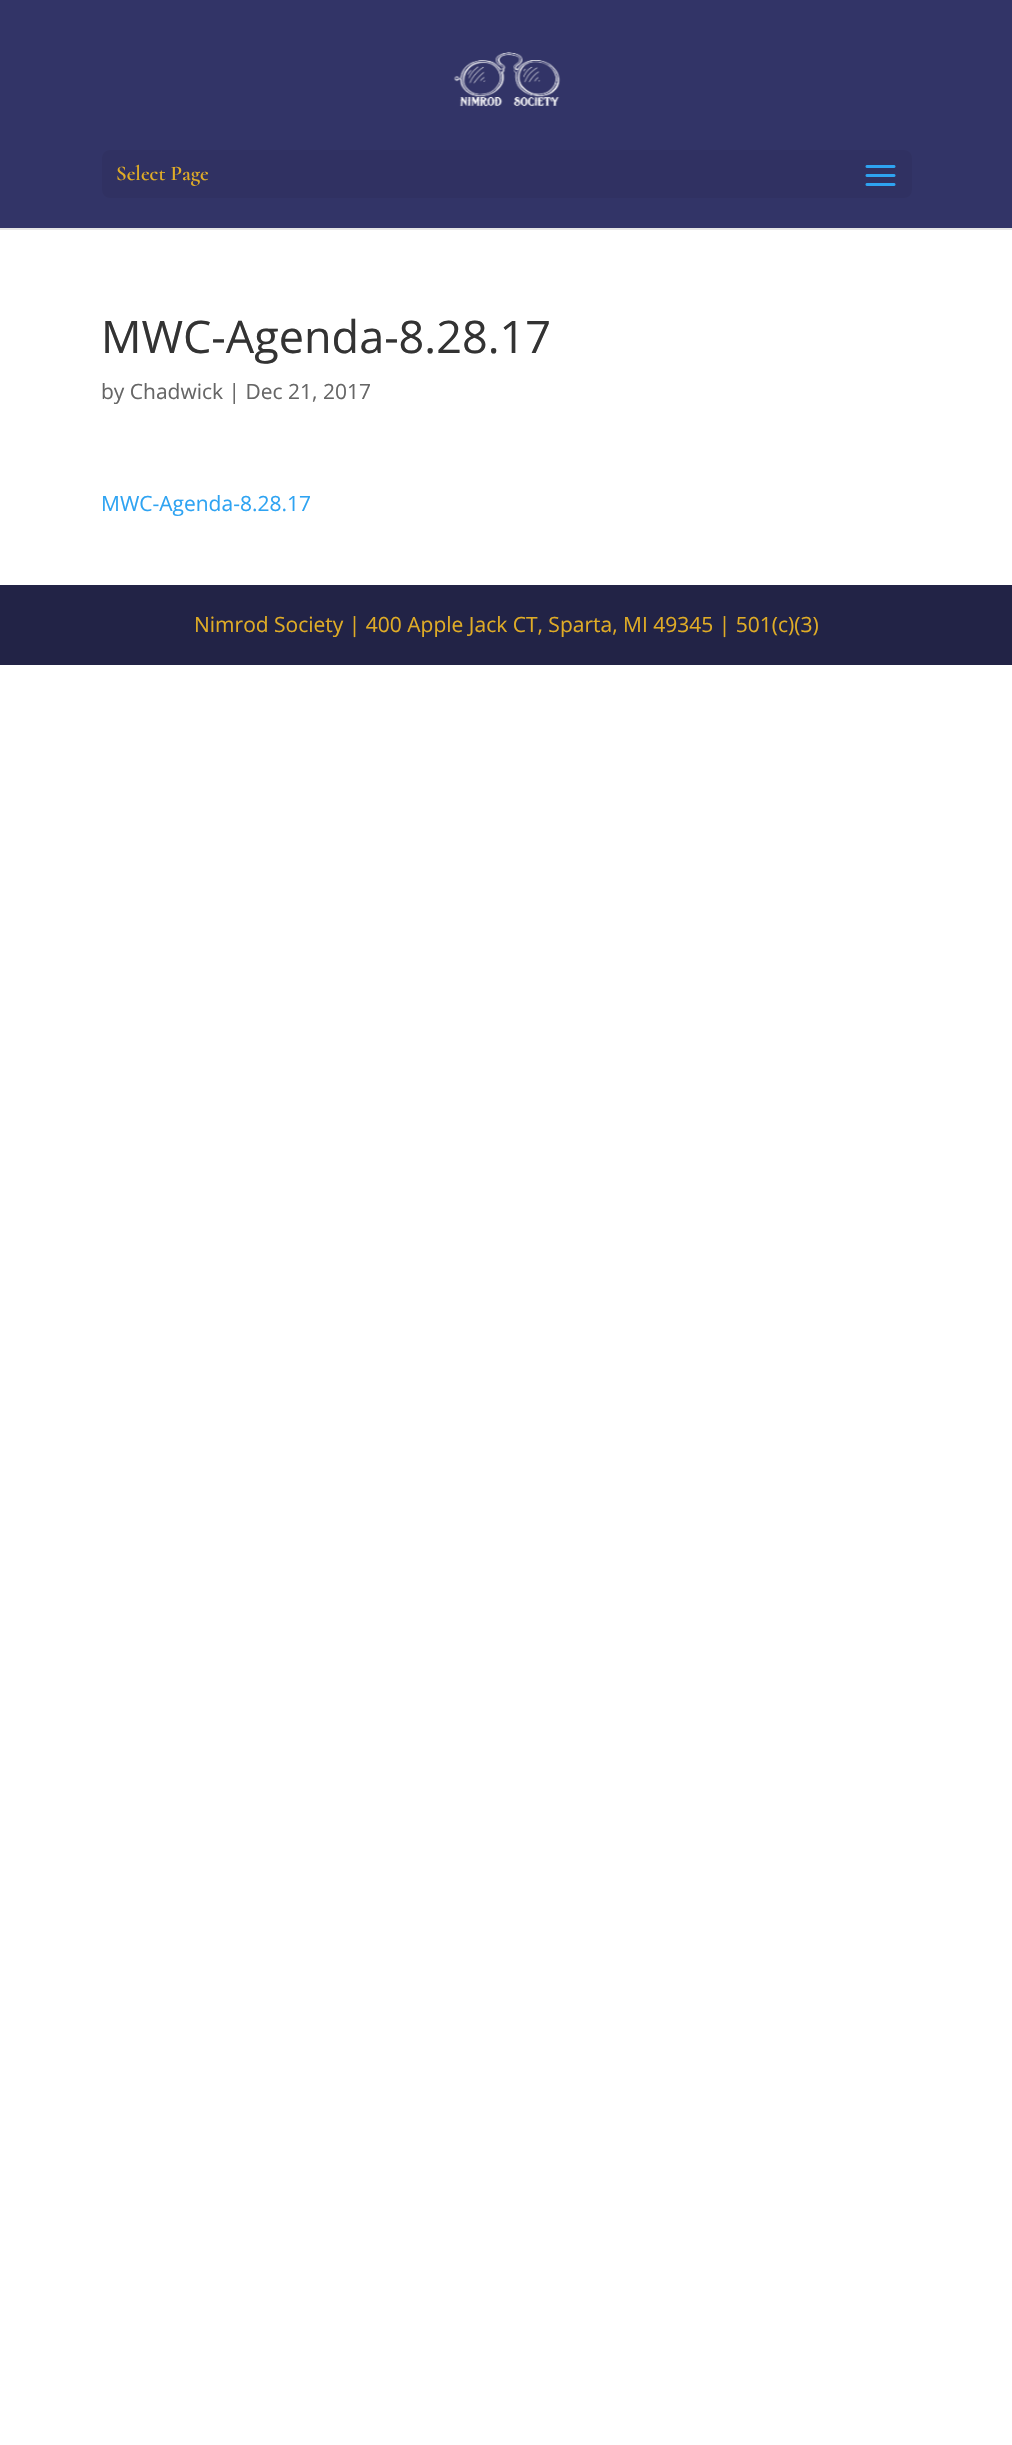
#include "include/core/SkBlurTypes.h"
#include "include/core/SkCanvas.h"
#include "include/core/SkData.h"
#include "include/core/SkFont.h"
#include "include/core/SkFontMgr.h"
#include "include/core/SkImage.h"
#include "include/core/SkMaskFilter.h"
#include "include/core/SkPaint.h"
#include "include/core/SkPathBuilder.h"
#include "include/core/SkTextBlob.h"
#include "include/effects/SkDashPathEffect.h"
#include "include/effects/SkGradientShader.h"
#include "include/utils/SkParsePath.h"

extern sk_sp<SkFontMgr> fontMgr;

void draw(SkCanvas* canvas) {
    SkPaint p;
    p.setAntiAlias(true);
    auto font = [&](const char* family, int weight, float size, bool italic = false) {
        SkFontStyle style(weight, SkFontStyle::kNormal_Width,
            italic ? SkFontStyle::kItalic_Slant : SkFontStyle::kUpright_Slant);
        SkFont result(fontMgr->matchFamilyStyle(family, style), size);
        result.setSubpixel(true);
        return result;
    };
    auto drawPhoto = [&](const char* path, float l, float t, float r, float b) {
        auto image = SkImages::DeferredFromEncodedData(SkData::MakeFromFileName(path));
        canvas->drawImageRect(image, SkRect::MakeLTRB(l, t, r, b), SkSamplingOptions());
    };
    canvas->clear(0xFFFFFFFF);
    p.setColor(0xFFE6E6E6);
    canvas->drawPath(SkPathBuilder().moveTo(0, 228).lineTo(0, 230).lineTo(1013, 230).lineTo(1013, 2).lineTo(1012, 2).lineTo(1012, 228).close().detach(), p);
    p.setColor(0xFF323467);
    canvas->drawRect(SkRect::MakeLTRB(0, 0, 1012, 228), p);
    drawPhoto("media/1.png", 453, 52, 561, 107);
    p.setColor(0xFF303162);
    canvas->drawRoundRect(SkRect::MakeLTRB(102, 150, 912, 198), 8, 8, p);
    auto font1 = font("Cormorant", 600, 21);
    p.setColor(0xFFE0AC26);
    canvas->drawString("Select Page", 116, 180, font1, p);
    drawPhoto("media/2.png", 865, 165, 896, 186);
    auto font2 = font("Open Sans", 400, 45);
    p.setColor(0xFF333333);
    canvas->drawString("MWC-Agenda-8.28.17", 101, 353, font2, p);
    auto font3 = font("Open Sans", 400, 21);
    p.setColor(0xFF666666);
    canvas->drawString("by Chadwick | Dec 21, 2017", 101, 399, font3, p);
    p.setColor(0xFF2EA3F2);
    canvas->drawString("MWC-Agenda-8.28.17", 101, 511, font3, p);
    p.setColor(0xFF222346);
    canvas->drawRect(SkRect::MakeLTRB(0, 585, 1012, 665), p);
    p.setColor(0xFFE0AC26);
    canvas->drawString("Nimrod Society | 400 Apple Jack CT, Sparta, MI 49345 | 501(c)(3)", 194, 632, font3, p);
}
